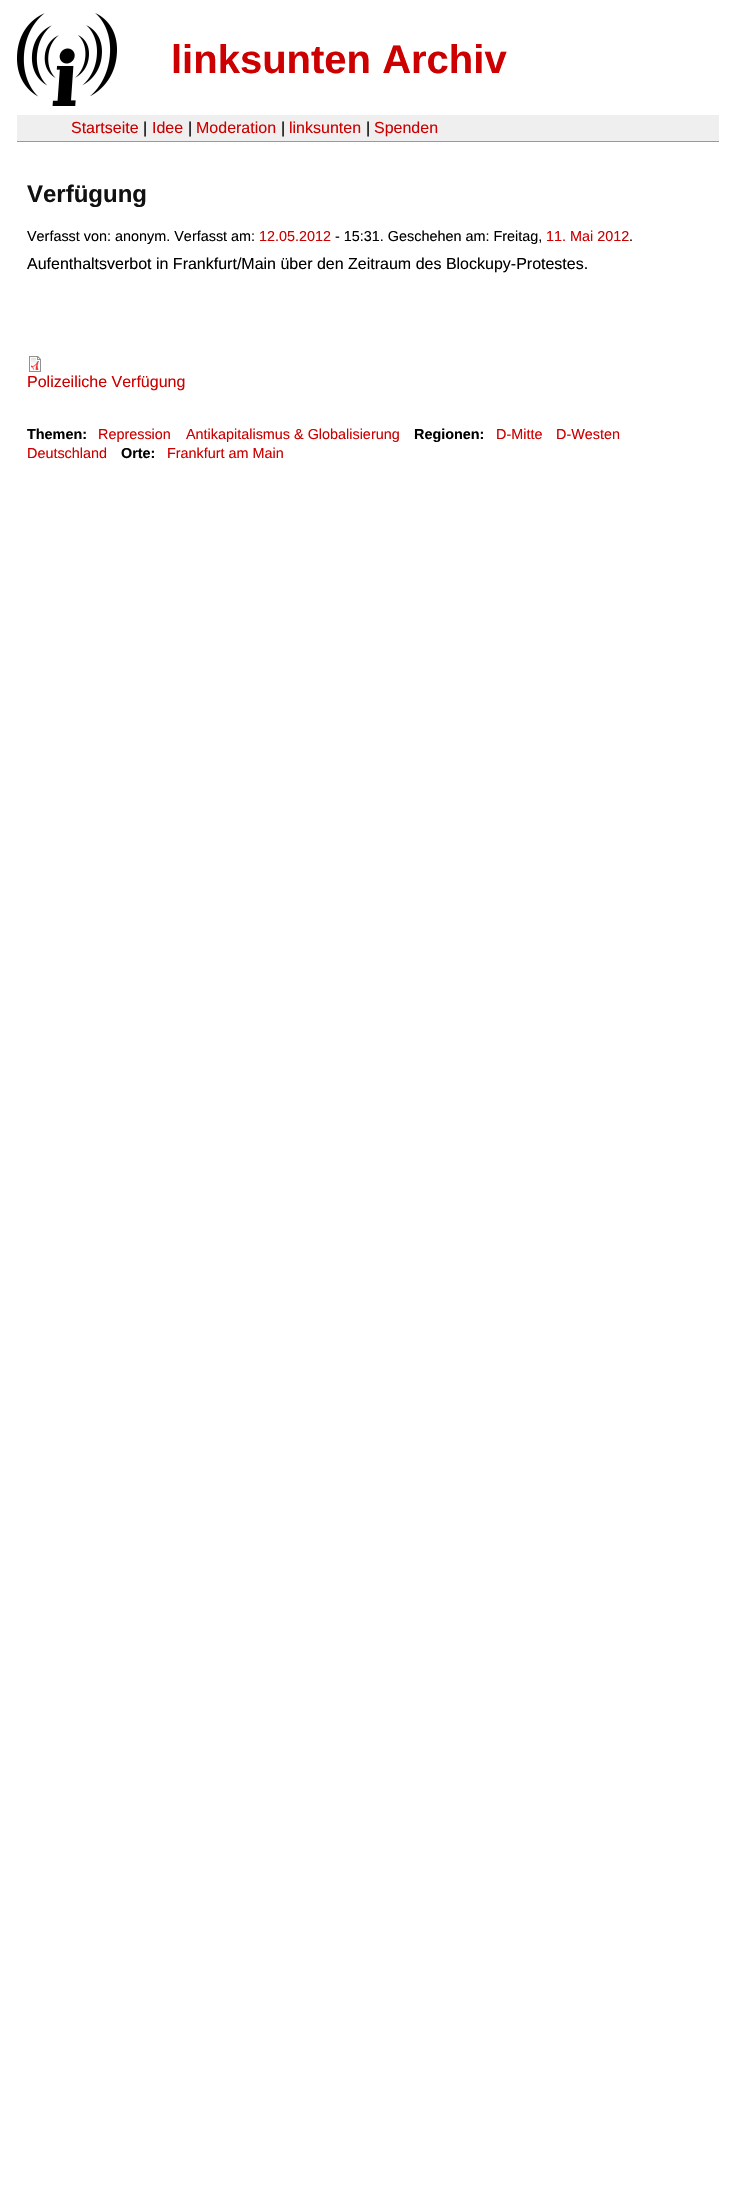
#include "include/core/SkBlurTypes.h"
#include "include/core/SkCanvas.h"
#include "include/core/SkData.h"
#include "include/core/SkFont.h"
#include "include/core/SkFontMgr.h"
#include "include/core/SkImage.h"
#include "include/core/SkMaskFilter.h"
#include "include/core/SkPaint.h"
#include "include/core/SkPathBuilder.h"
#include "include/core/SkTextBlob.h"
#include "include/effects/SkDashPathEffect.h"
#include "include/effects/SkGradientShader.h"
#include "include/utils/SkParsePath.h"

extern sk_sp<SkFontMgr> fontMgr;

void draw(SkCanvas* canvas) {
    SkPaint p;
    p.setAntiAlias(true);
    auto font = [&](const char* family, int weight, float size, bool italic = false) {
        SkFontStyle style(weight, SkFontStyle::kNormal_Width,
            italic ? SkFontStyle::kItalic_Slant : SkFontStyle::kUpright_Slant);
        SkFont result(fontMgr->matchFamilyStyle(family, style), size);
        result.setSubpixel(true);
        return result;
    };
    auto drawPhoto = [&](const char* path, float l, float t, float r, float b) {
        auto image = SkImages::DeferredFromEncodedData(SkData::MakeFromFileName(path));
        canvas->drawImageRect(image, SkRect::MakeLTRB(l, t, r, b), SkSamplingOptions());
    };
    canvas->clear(0xFFFFFFFF);
    drawPhoto("media/1.png", 17, 13, 117, 106);
    auto font1 = font("Liberation Sans", 700, 40);
    p.setColor(0xFFCC0000);
    canvas->drawString("linksunten Archiv", 171, 73, font1, p);
    p.setColor(0xFFEFEFEF);
    canvas->drawRect(SkRect::MakeLTRB(17, 115, 719, 141), p);
    p.setColor(0xFF999999);
    canvas->drawRect(SkRect::MakeLTRB(17, 141, 719, 142), p);
    auto font2 = font("Liberation Sans", 400, 16);
    p.setColor(0xFFCC0000);
    canvas->drawString("Startseite", 71, 133, font2, p);
    p.setColor(0xFF000000);
    canvas->drawString("|", 143, 133, font2, p);
    p.setColor(0xFFCC0000);
    canvas->drawString("Idee", 152, 133, font2, p);
    p.setColor(0xFF000000);
    canvas->drawString("|", 188, 133, font2, p);
    p.setColor(0xFFCC0000);
    canvas->drawString("Moderation", 196, 133, font2, p);
    p.setColor(0xFF000000);
    canvas->drawString("|", 281, 133, font2, p);
    p.setColor(0xFFCC0000);
    canvas->drawString("linksunten", 289, 133, font2, p);
    p.setColor(0xFF000000);
    canvas->drawString("|", 366, 133, font2, p);
    p.setColor(0xFFCC0000);
    canvas->drawString("Spenden", 374, 133, font2, p);
    auto font3 = font("Liberation Sans", 700, 24);
    p.setColor(0xFF111111);
    canvas->drawString("Verfügung", 27, 202, font3, p);
    auto font4 = font("Liberation Sans", 400, 14.4f);
    p.setColor(0xFF000000);
    canvas->drawString("Verfasst von: anonym. Verfasst am:", 27, 241, font4, p);
    p.setColor(0xFFCC0000);
    canvas->drawString("12.05.2012", 259, 241, font4, p);
    p.setColor(0xFF000000);
    canvas->drawString("- 15:31. Geschehen am: Freitag,", 335, 241, font4, p);
    p.setColor(0xFFCC0000);
    canvas->drawString("11. Mai 2012", 546, 241, font4, p);
    p.setColor(0xFF000000);
    canvas->drawString(".", 629, 241, font4, p);
    canvas->drawString("Aufenthaltsverbot in Frankfurt/Main über den Zeitraum des Blockupy-Protestes.", 27, 269, font2, p);
    drawPhoto("media/2.png", 29, 356, 41, 372);
    p.setColor(0xFFCC0000);
    canvas->drawString("Polizeiliche Verfügung", 27, 387, font2, p);
    auto font5 = font("Liberation Sans", 700, 14.4f);
    p.setColor(0xFF000000);
    canvas->drawString("Themen:", 27, 439, font5, p);
    p.setColor(0xFFCC0000);
    canvas->drawString("Repression", 98, 439, font4, p);
    canvas->drawString("Antikapitalismus & Globalisierung", 186, 439, font4, p);
    p.setColor(0xFF000000);
    canvas->drawString("Regionen:", 414, 439, font5, p);
    p.setColor(0xFFCC0000);
    {
        const struct { const char* s; float x, y; } items[] = {
            {"D-Mitte", 496, 439},
            {"D-Westen", 556, 439},
            {"Deutschland", 27, 458},
        };
        for (auto [s, x, y] : items) {
            canvas->drawString(s, x, y, font4, p);
        }
    }
    p.setColor(0xFF000000);
    canvas->drawString("Orte:", 121, 458, font5, p);
    p.setColor(0xFFCC0000);
    canvas->drawString("Frankfurt am Main", 167, 458, font4, p);
}
